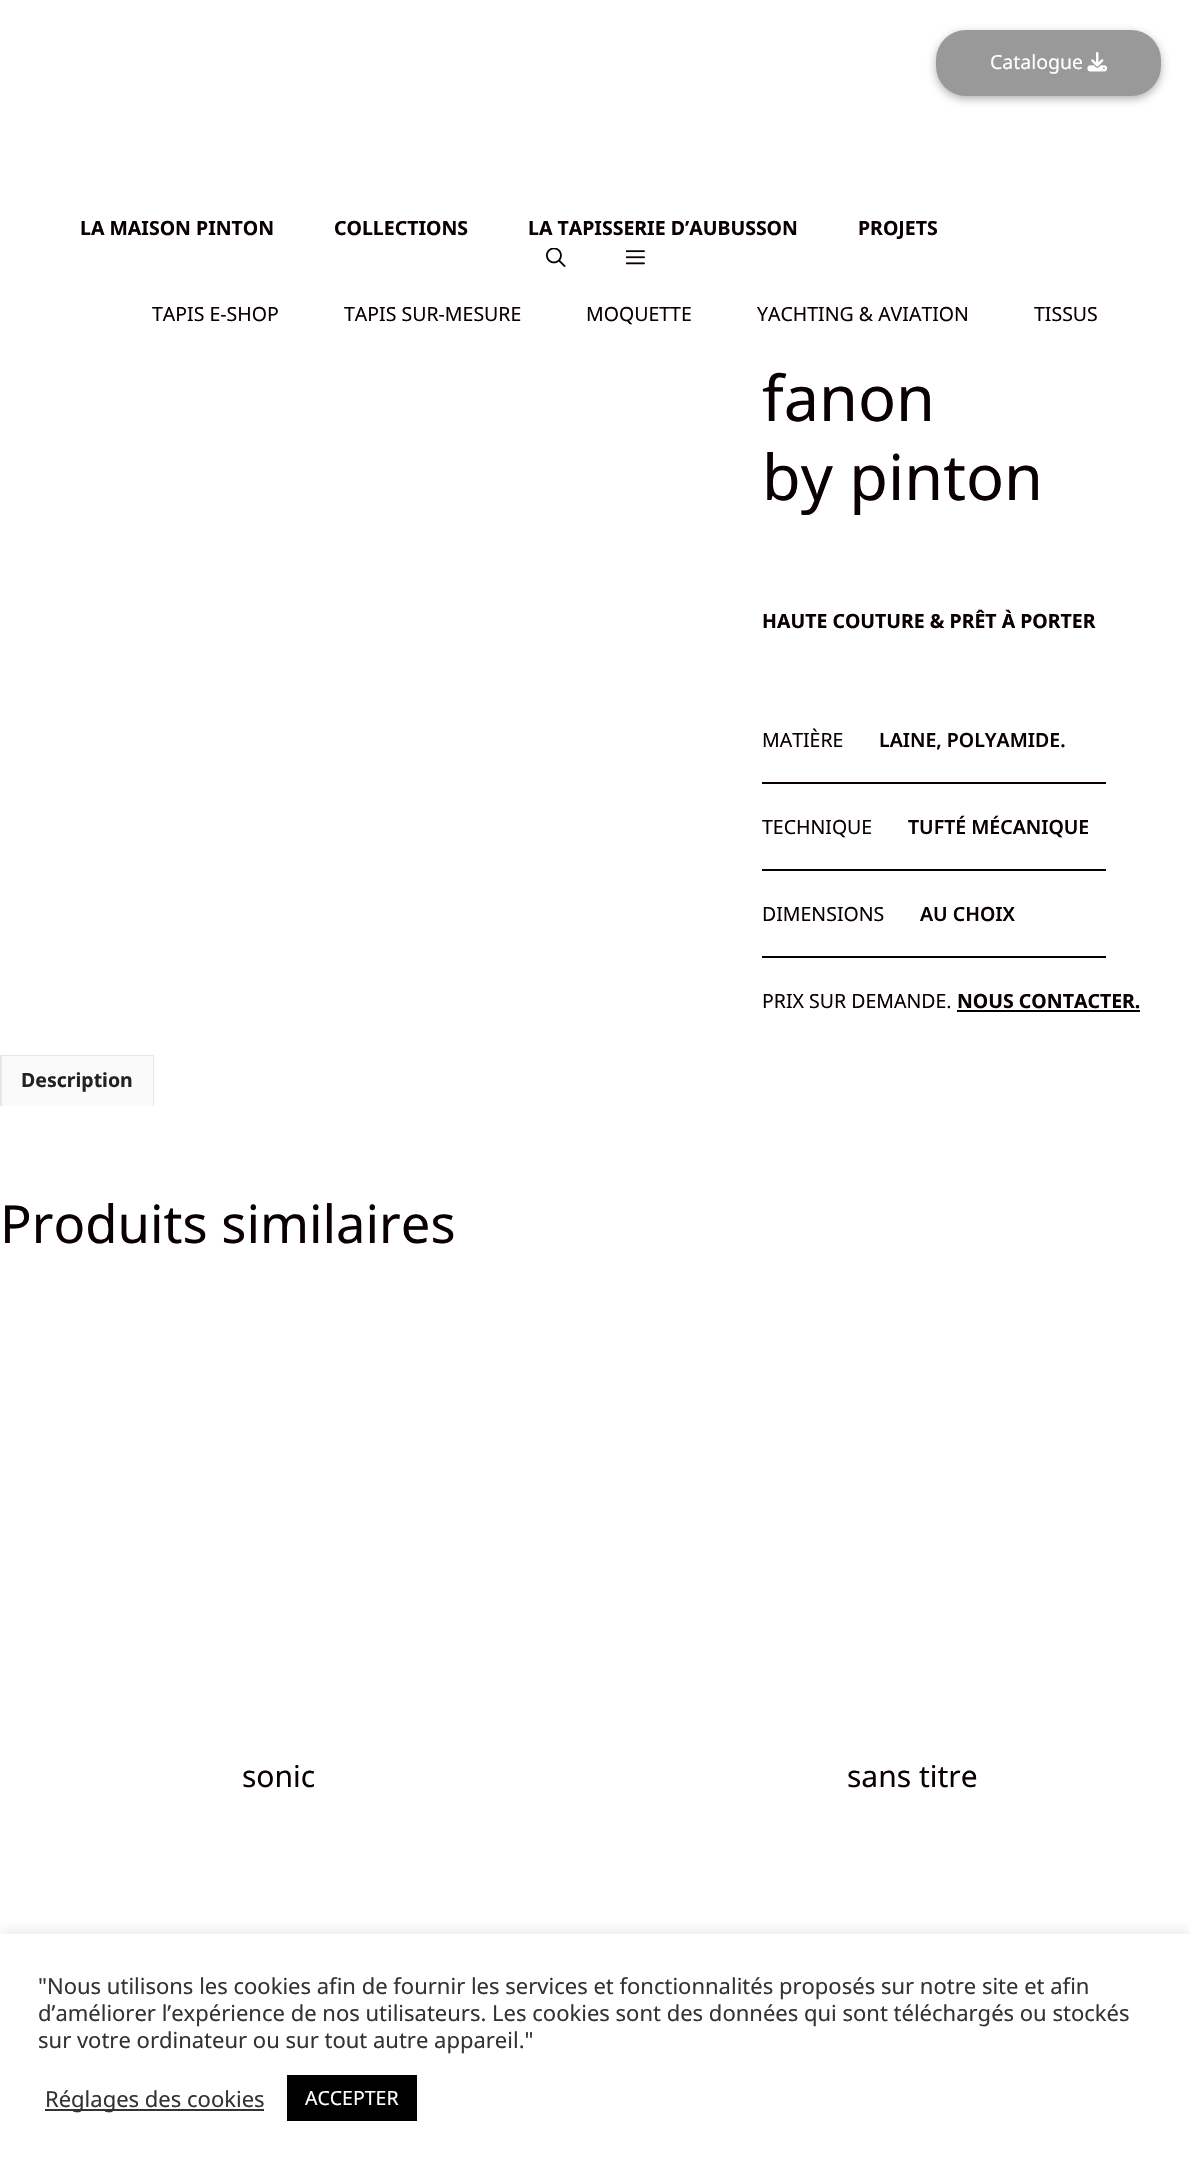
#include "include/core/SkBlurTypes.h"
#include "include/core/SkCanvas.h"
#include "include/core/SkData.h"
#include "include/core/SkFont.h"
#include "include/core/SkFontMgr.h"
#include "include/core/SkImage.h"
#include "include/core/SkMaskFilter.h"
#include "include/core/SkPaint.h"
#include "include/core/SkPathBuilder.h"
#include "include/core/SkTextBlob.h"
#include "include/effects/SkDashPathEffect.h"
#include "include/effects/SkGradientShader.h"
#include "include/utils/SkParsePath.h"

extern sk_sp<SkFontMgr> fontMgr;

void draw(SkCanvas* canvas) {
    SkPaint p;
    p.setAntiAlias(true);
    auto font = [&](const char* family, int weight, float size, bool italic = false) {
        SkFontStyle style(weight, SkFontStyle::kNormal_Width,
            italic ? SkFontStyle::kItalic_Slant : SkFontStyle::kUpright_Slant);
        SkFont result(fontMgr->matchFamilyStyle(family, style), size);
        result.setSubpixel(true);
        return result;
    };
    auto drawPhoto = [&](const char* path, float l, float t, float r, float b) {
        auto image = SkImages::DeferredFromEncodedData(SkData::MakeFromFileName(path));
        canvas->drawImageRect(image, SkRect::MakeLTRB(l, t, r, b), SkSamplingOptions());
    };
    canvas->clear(0xFFFFFFFF);
    p.setColor(0x4D000000);
    p.setMaskFilter(SkMaskFilter::MakeBlur(kNormal_SkBlurStyle, 4.5f));
    canvas->drawRoundRect(SkRect::MakeLTRB(936, 33, 1161, 99), 30, 30, p);
    p.setMaskFilter(nullptr);
    p.setColor(0xFF999999);
    canvas->drawRoundRect(SkRect::MakeLTRB(936, 30, 1161, 96), 30, 30, p);
    auto font1 = font("Noto Sans", 400, 19.5f);
    p.setColor(0xFFFFFFFF);
    canvas->drawString("Catalogue", 990, 69, font1, p);
    drawPhoto("media/1.png", 1087, 52, 1107, 72);
    auto font2 = font("Noto Sans", 700, 19.5f);
    p.setColor(0xFF0A0002);
    {
        const struct { const char* s; float x, y; } items[] = {
            {"LA MAISON PINTON", 80, 235},
            {"COLLECTIONS", 334, 235},
            {"LA TAPISSERIE D’AUBUSSON", 528, 235},
            {"PROJETS", 858, 235},
        };
        for (auto [s, x, y] : items) {
            canvas->drawString(s, x, y, font2, p);
        }
    }
    drawPhoto("media/2.png", 546, 248, 566, 267);
    drawPhoto("media/3.png", 626, 250, 645, 265);
    {
        const struct { const char* s; float x, y; } items[] = {
            {"TAPIS E-SHOP", 152, 321},
            {"TAPIS SUR-MESURE", 344, 321},
            {"MOQUETTE", 586, 321},
            {"YACHTING & AVIATION", 757, 321},
            {"TISSUS", 1034, 321},
        };
        for (auto [s, x, y] : items) {
            canvas->drawString(s, x, y, font1, p);
        }
    }
    auto font3 = font("Noto Sans", 400, 63);
    canvas->drawString("fanon", 762, 421, font3, p);
    canvas->drawString("by pinton", 762, 500, font3, p);
    canvas->drawString("HAUTE COUTURE & PRÊT À PORTER", 762, 628, font2, p);
    canvas->drawRect(SkRect::MakeLTRB(762, 782, 1106, 784), p);
    canvas->drawString("MATIÈRE", 762, 747, font1, p);
    auto font4 = font("Noto Sans", 600, 19.5f);
    canvas->drawString("LAINE, POLYAMIDE.", 879, 747, font4, p);
    canvas->drawRect(SkRect::MakeLTRB(762, 869, 1106, 871), p);
    canvas->drawString("TECHNIQUE", 762, 834, font1, p);
    canvas->drawString("TUFTÉ MÉCANIQUE", 908, 834, font4, p);
    canvas->drawRect(SkRect::MakeLTRB(762, 956, 1106, 958), p);
    canvas->drawString("DIMENSIONS", 762, 921, font1, p);
    canvas->drawString("AU CHOIX", 920, 921, font4, p);
    canvas->drawString("PRIX SUR DEMANDE.", 762, 1008, font1, p);
    canvas->drawString("NOUS CONTACTER.", 957, 1008, font2, p);
    canvas->drawRect(SkRect::MakeLTRB(957, 1010, 1140, 1012), p);
    p.setColor(0xFFFAFAFA);
    canvas->drawRect(SkRect::MakeLTRB(0, 1055, 155, 1106), p);
    canvas->save();
    canvas->clipRect(SkRect::MakeLTRB(0, 1055, 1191, 1106));
    p.setColor(0xFFE6E6E6);
    canvas->drawPath(SkPathBuilder().moveTo(0, 1054).lineTo(154, 1054).lineTo(153, 1056).lineTo(2, 1056).close().detach(), p);
    canvas->restore();
    p.setColor(0x14000000);
    canvas->drawPath(SkPathBuilder().moveTo(154, 1054).lineTo(154, 1106).lineTo(153, 1106).lineTo(153, 1056).close().detach(), p);
    canvas->drawPath(SkPathBuilder().moveTo(0, 1106).lineTo(0, 1054).lineTo(2, 1056).lineTo(2, 1106).close().detach(), p);
    p.setColor(0xFF222222);
    canvas->drawString("Description", 21, 1087, font2, p);
    auto font5 = font("Noto Sans", 400, 52.5f);
    p.setColor(0xFF0A0002);
    canvas->drawString("Produits similaires", 0, 1243, font5, p);
    auto font6 = font("Noto Sans", 400, 30);
    canvas->drawString("sonic", 242, 1787, font6, p);
    canvas->drawString("sans titre", 847, 1787, font6, p);
    canvas->save();
    canvas->clipRect(SkRect::MakeLTRB(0, 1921, 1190, 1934));
    p.setColor(0x4DACABAB);
    p.setMaskFilter(SkMaskFilter::MakeBlur(kNormal_SkBlurStyle, 7.5f));
    canvas->drawRect(SkRect::MakeLTRB(0, 1932, 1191, 2165), p);
    p.setMaskFilter(nullptr);
    canvas->restore();
    auto font7 = font("Noto Sans", 400, 22);
    p.setColor(0xFF333333);
    {
        const struct { const char* s; float x, y; } items[] = {
            {"\"Nous utilisons les cookies afin de fournir les services et fonctionnalités proposés sur notre site et afin", 38, 1994},
            {"d’améliorer l’expérience de nos utilisateurs. Les cookies sont des données qui sont téléchargés ou stockés", 38, 2021},
            {"sur votre ordinateur ou sur tout autre appareil.\"", 38, 2048},
        };
        for (auto [s, x, y] : items) {
            canvas->drawString(s, x, y, font7, p);
        }
    }
    canvas->drawRect(SkRect::MakeLTRB(45, 2109, 264, 2111), p);
    canvas->drawString("Réglages des cookies", 45, 2107, font7, p);
    p.setColor(0xFF000000);
    canvas->drawRect(SkRect::MakeLTRB(287, 2075, 417, 2121), p);
    p.setColor(0xFFFFFFFF);
    canvas->drawString("ACCEPTER", 305, 2105, font1, p);
}
